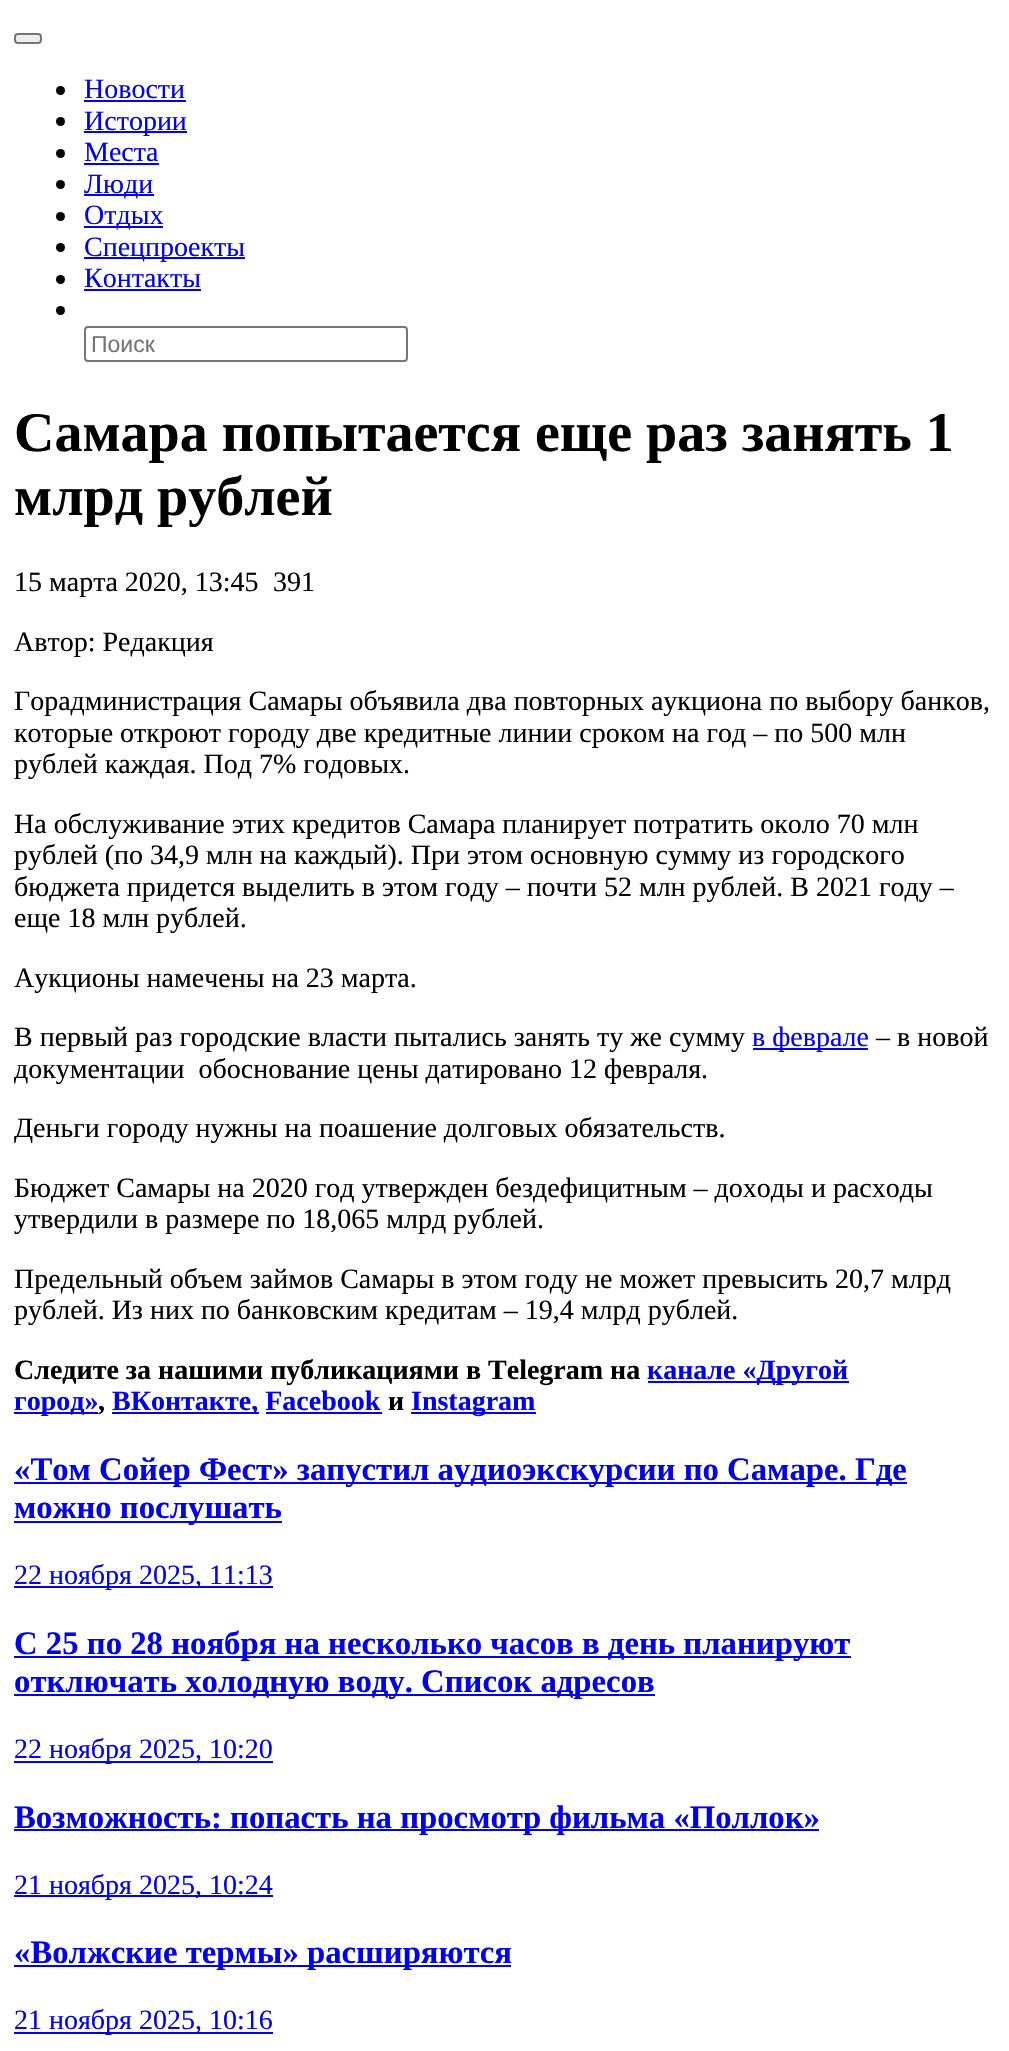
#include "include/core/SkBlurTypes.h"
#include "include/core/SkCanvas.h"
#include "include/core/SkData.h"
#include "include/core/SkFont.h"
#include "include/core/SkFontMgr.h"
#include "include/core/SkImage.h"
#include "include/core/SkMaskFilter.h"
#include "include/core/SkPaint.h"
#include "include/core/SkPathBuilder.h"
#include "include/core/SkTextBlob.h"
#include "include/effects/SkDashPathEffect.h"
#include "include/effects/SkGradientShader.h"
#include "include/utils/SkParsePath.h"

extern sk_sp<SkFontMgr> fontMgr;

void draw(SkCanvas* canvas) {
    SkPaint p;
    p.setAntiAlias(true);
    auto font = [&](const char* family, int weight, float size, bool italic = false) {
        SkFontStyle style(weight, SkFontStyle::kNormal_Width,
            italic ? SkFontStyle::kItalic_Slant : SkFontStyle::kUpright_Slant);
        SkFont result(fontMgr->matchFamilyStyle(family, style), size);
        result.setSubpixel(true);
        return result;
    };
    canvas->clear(0xFFFFFFFF);
    p.setColor(0xFFEFEFEF);
    canvas->drawRoundRect(SkRect::MakeLTRB(15, 34, 41, 43), 3, 3, p);
    p.setStyle(SkPaint::kStroke_Style);
    p.setStrokeWidth(2);
    p.setColor(0xFF767676);
    canvas->drawRoundRect(SkRect::MakeLTRB(15, 34, 41, 43), 3, 3, p);
    p.setStyle(SkPaint::kFill_Style);
    p.setColor(0xFF000000);
    canvas->drawCircle(60.5f, 90.5f, 4.5f, p);
    auto font1 = font("Liberation Serif", 400, 28);
    p.setColor(0xFF0000EE);
    canvas->drawString("Новости", 84, 98, font1, p);
    canvas->drawRect(SkRect::MakeLTRB(84, 100, 186, 102), p);
    p.setColor(0xFF000000);
    canvas->drawCircle(60.5f, 121.5f, 4.5f, p);
    p.setColor(0xFF0000EE);
    canvas->drawRect(SkRect::MakeLTRB(84, 131, 187, 133), p);
    canvas->drawString("Истории", 84, 130, font1, p);
    p.setColor(0xFF000000);
    canvas->drawCircle(60.5f, 153.5f, 4.5f, p);
    p.setColor(0xFF0000EE);
    canvas->drawString("Места", 84, 161, font1, p);
    canvas->drawRect(SkRect::MakeLTRB(84, 163, 159, 165), p);
    p.setColor(0xFF000000);
    canvas->drawCircle(60.5f, 184.5f, 4.5f, p);
    p.setColor(0xFF0000EE);
    canvas->drawRect(SkRect::MakeLTRB(84, 194, 154, 196), p);
    canvas->drawString("Люди", 84, 193, font1, p);
    p.setColor(0xFF000000);
    canvas->drawCircle(60.5f, 216.5f, 4.5f, p);
    p.setColor(0xFF0000EE);
    canvas->drawRect(SkRect::MakeLTRB(84, 226, 163, 228), p);
    canvas->drawString("Отдых", 84, 224, font1, p);
    p.setColor(0xFF000000);
    canvas->drawCircle(60.5f, 247.5f, 4.5f, p);
    p.setColor(0xFF0000EE);
    canvas->drawRect(SkRect::MakeLTRB(84, 257, 245, 259), p);
    canvas->drawString("Спецпроекты", 84, 256, font1, p);
    p.setColor(0xFF000000);
    canvas->drawCircle(60.5f, 279.5f, 4.5f, p);
    p.setColor(0xFF0000EE);
    canvas->drawString("Контакты", 84, 287, font1, p);
    canvas->drawRect(SkRect::MakeLTRB(84, 289, 201, 291), p);
    p.setColor(0xFF000000);
    canvas->drawCircle(60.5f, 310.5f, 4.5f, p);
    p.setStyle(SkPaint::kStroke_Style);
    p.setColor(0xFF767676);
    canvas->drawRoundRect(SkRect::MakeLTRB(85, 327, 407, 361), 3, 3, p);
    auto font2 = font("Liberation Sans", 400, 23);
    p.setStyle(SkPaint::kFill_Style);
    p.setColor(0xFF757575);
    canvas->drawString("Поиск", 91, 352, font2, p);
    auto font3 = font("Liberation Serif", 700, 56);
    p.setColor(0xFF000000);
    canvas->drawString("Самара попытается еще раз занять 1", 14, 451, font3, p);
    canvas->drawString("млрд рублей", 14, 515, font3, p);
    {
        const struct { const char* s; float x, y; } items[] = {
            {"15 марта 2020, 13:45", 14, 591},
            {"391", 273, 591},
            {"Автор: Редакция", 14, 651},
            {"Горадминистрация Самары объявила два повторных аукциона по выбору банков,", 14, 710},
            {"которые откроют городу две кредитные линии сроком на год – по 500 млн", 14, 742},
            {"рублей каждая. Под 7% годовых.", 14, 773},
            {"На обслуживание этих кредитов Самара планирует потратить около 70 млн", 14, 833},
            {"рублей (по 34,9 млн на каждый). При этом основную сумму из городского", 14, 864},
            {"бюджета придется выделить в этом году – почти 52 млн рублей. В 2021 году –", 14, 896},
            {"еще 18 млн рублей.", 14, 927},
            {"Аукционы намечены на 23 марта.", 14, 987},
            {"В первый раз городские власти пытались занять ту же сумму", 14, 1046},
        };
        for (auto [s, x, y] : items) {
            canvas->drawString(s, x, y, font1, p);
        }
    }
    p.setColor(0xFF0000EE);
    canvas->drawRect(SkRect::MakeLTRB(753, 1048, 868, 1050), p);
    canvas->drawString("в феврале", 752, 1046, font1, p);
    p.setColor(0xFF000000);
    {
        const struct { const char* s; float x, y; } items[] = {
            {"– в новой", 876, 1046},
            {"документации  обоснование цены датировано 12 февраля.", 14, 1078},
            {"Деньги городу нужны на поашение долговых обязательств.", 14, 1137},
            {"Бюджет Самары на 2020 год утвержден бездефицитным – доходы и расходы", 14, 1197},
            {"утвердили в размере по 18,065 млрд рублей.", 14, 1228},
            {"Предельный объем займов Самары в этом году не может превысить 20,7 млрд", 14, 1288},
            {"рублей. Из них по банковским кредитам – 19,4 млрд рублей.", 14, 1319},
        };
        for (auto [s, x, y] : items) {
            canvas->drawString(s, x, y, font1, p);
        }
    }
    auto font4 = font("Liberation Serif", 700, 28);
    canvas->drawString("Следите за нашими публикациями в Telegram на", 14, 1379, font4, p);
    p.setColor(0xFF0000EE);
    canvas->drawRect(SkRect::MakeLTRB(648, 1381, 849, 1383), p);
    canvas->drawString("канале «Другой", 647, 1379, font4, p);
    canvas->drawRect(SkRect::MakeLTRB(14, 1412, 98, 1414), p);
    canvas->drawString("город»", 14, 1410, font4, p);
    p.setColor(0xFF000000);
    canvas->drawString(",", 98, 1410, font4, p);
    p.setColor(0xFF0000EE);
    canvas->drawRect(SkRect::MakeLTRB(112, 1412, 259, 1414), p);
    canvas->drawString("ВКонтакте, Facebook", 112, 1410, font4, p);
    canvas->drawRect(SkRect::MakeLTRB(266, 1412, 382, 1414), p);
    p.setColor(0xFF000000);
    canvas->drawString("и", 388, 1410, font4, p);
    p.setColor(0xFF0000EE);
    canvas->drawRect(SkRect::MakeLTRB(411, 1412, 536, 1414), p);
    canvas->drawString("Instagram", 411, 1410, font4, p);
    canvas->drawRect(SkRect::MakeLTRB(14, 1482, 907, 1484), p);
    auto font5 = font("Liberation Serif", 700, 32.75f);
    canvas->drawString("«Том Сойер Фест» запустил аудиоэкскурсии по Самаре. Где", 14, 1480, font5, p);
    canvas->drawRect(SkRect::MakeLTRB(14, 1521, 282, 1523), p);
    canvas->drawString("можно послушать", 14, 1518, font5, p);
    canvas->drawRect(SkRect::MakeLTRB(14, 1586, 273, 1588), p);
    canvas->drawString("22 ноября 2025, 11:13", 14, 1584, font1, p);
    canvas->drawRect(SkRect::MakeLTRB(14, 1656, 851, 1658), p);
    canvas->drawString("С 25 по 28 ноября на несколько часов в день планируют", 14, 1654, font5, p);
    canvas->drawRect(SkRect::MakeLTRB(14, 1694, 655, 1696), p);
    canvas->drawString("отключать холодную воду. Список адресов", 14, 1692, font5, p);
    canvas->drawRect(SkRect::MakeLTRB(14, 1761, 273, 1763), p);
    canvas->drawString("22 ноября 2025, 10:20", 14, 1758, font1, p);
    canvas->drawRect(SkRect::MakeLTRB(14, 1829, 819, 1831), p);
    canvas->drawString("Возможность: попасть на просмотр фильма «Поллок»", 14, 1828, font5, p);
    canvas->drawRect(SkRect::MakeLTRB(14, 1895, 273, 1897), p);
    canvas->drawString("21 ноября 2025, 10:24", 14, 1894, font1, p);
    canvas->drawRect(SkRect::MakeLTRB(14, 1965, 511, 1967), p);
    canvas->drawString("«Волжские термы» расширяются", 14, 1963, font5, p);
    canvas->drawRect(SkRect::MakeLTRB(14, 2032, 273, 2034), p);
    canvas->drawString("21 ноября 2025, 10:16", 14, 2029, font1, p);
}
